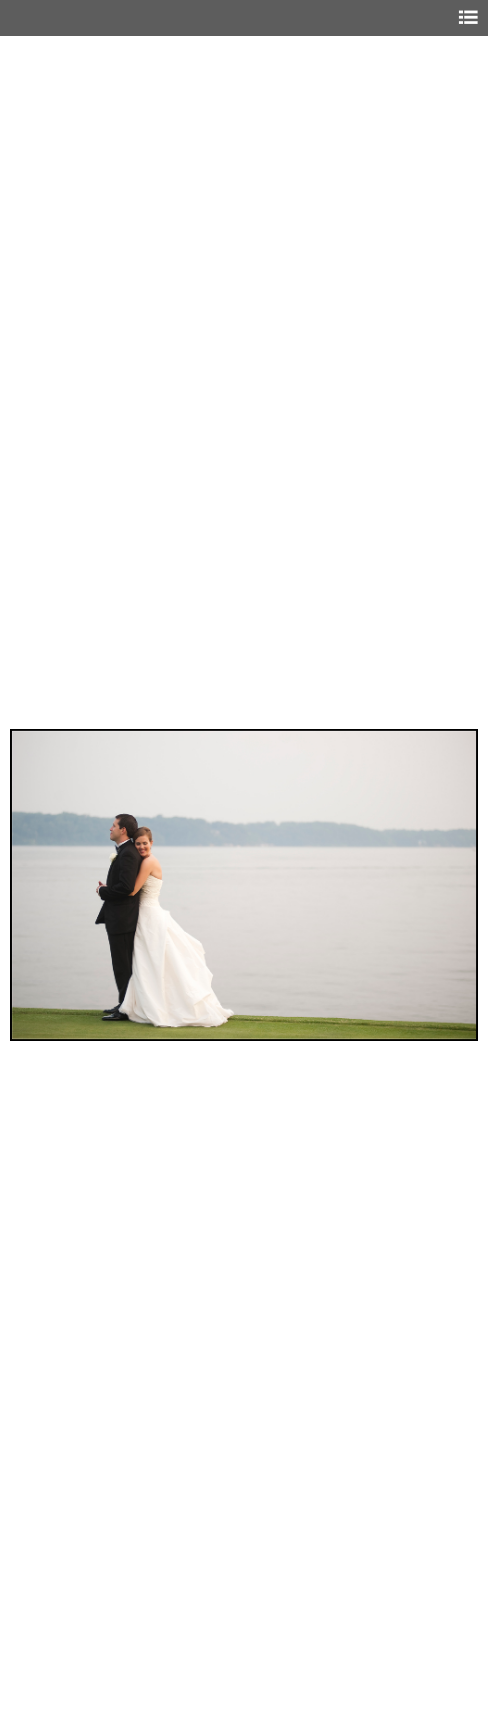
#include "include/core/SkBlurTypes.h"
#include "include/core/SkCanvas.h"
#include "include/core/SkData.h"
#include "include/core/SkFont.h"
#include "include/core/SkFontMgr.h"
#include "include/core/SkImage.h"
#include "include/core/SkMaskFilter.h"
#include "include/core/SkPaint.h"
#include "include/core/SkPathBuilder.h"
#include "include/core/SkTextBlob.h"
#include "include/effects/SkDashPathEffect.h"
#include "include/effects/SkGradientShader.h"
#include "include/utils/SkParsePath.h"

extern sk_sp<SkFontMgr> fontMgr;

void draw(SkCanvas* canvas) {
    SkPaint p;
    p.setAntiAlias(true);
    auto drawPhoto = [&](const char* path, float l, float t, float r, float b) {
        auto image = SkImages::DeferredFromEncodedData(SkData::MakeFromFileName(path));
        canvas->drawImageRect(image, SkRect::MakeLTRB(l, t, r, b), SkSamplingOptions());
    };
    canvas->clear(0xFFFFFFFF);
    p.setColor(0xFF5D5D5D);
    canvas->drawRect(SkRect::MakeLTRB(0, 0, 488, 36), p);
    drawPhoto("media/1.png", 458, 10, 478, 24);
    p.setStyle(SkPaint::kStroke_Style);
    p.setStrokeWidth(2);
    p.setColor(0xFF000000);
    canvas->drawRect(SkRect::MakeLTRB(11, 730, 477, 1040), p);
    drawPhoto("media/2.png", 11, 730, 477, 1040);
}
